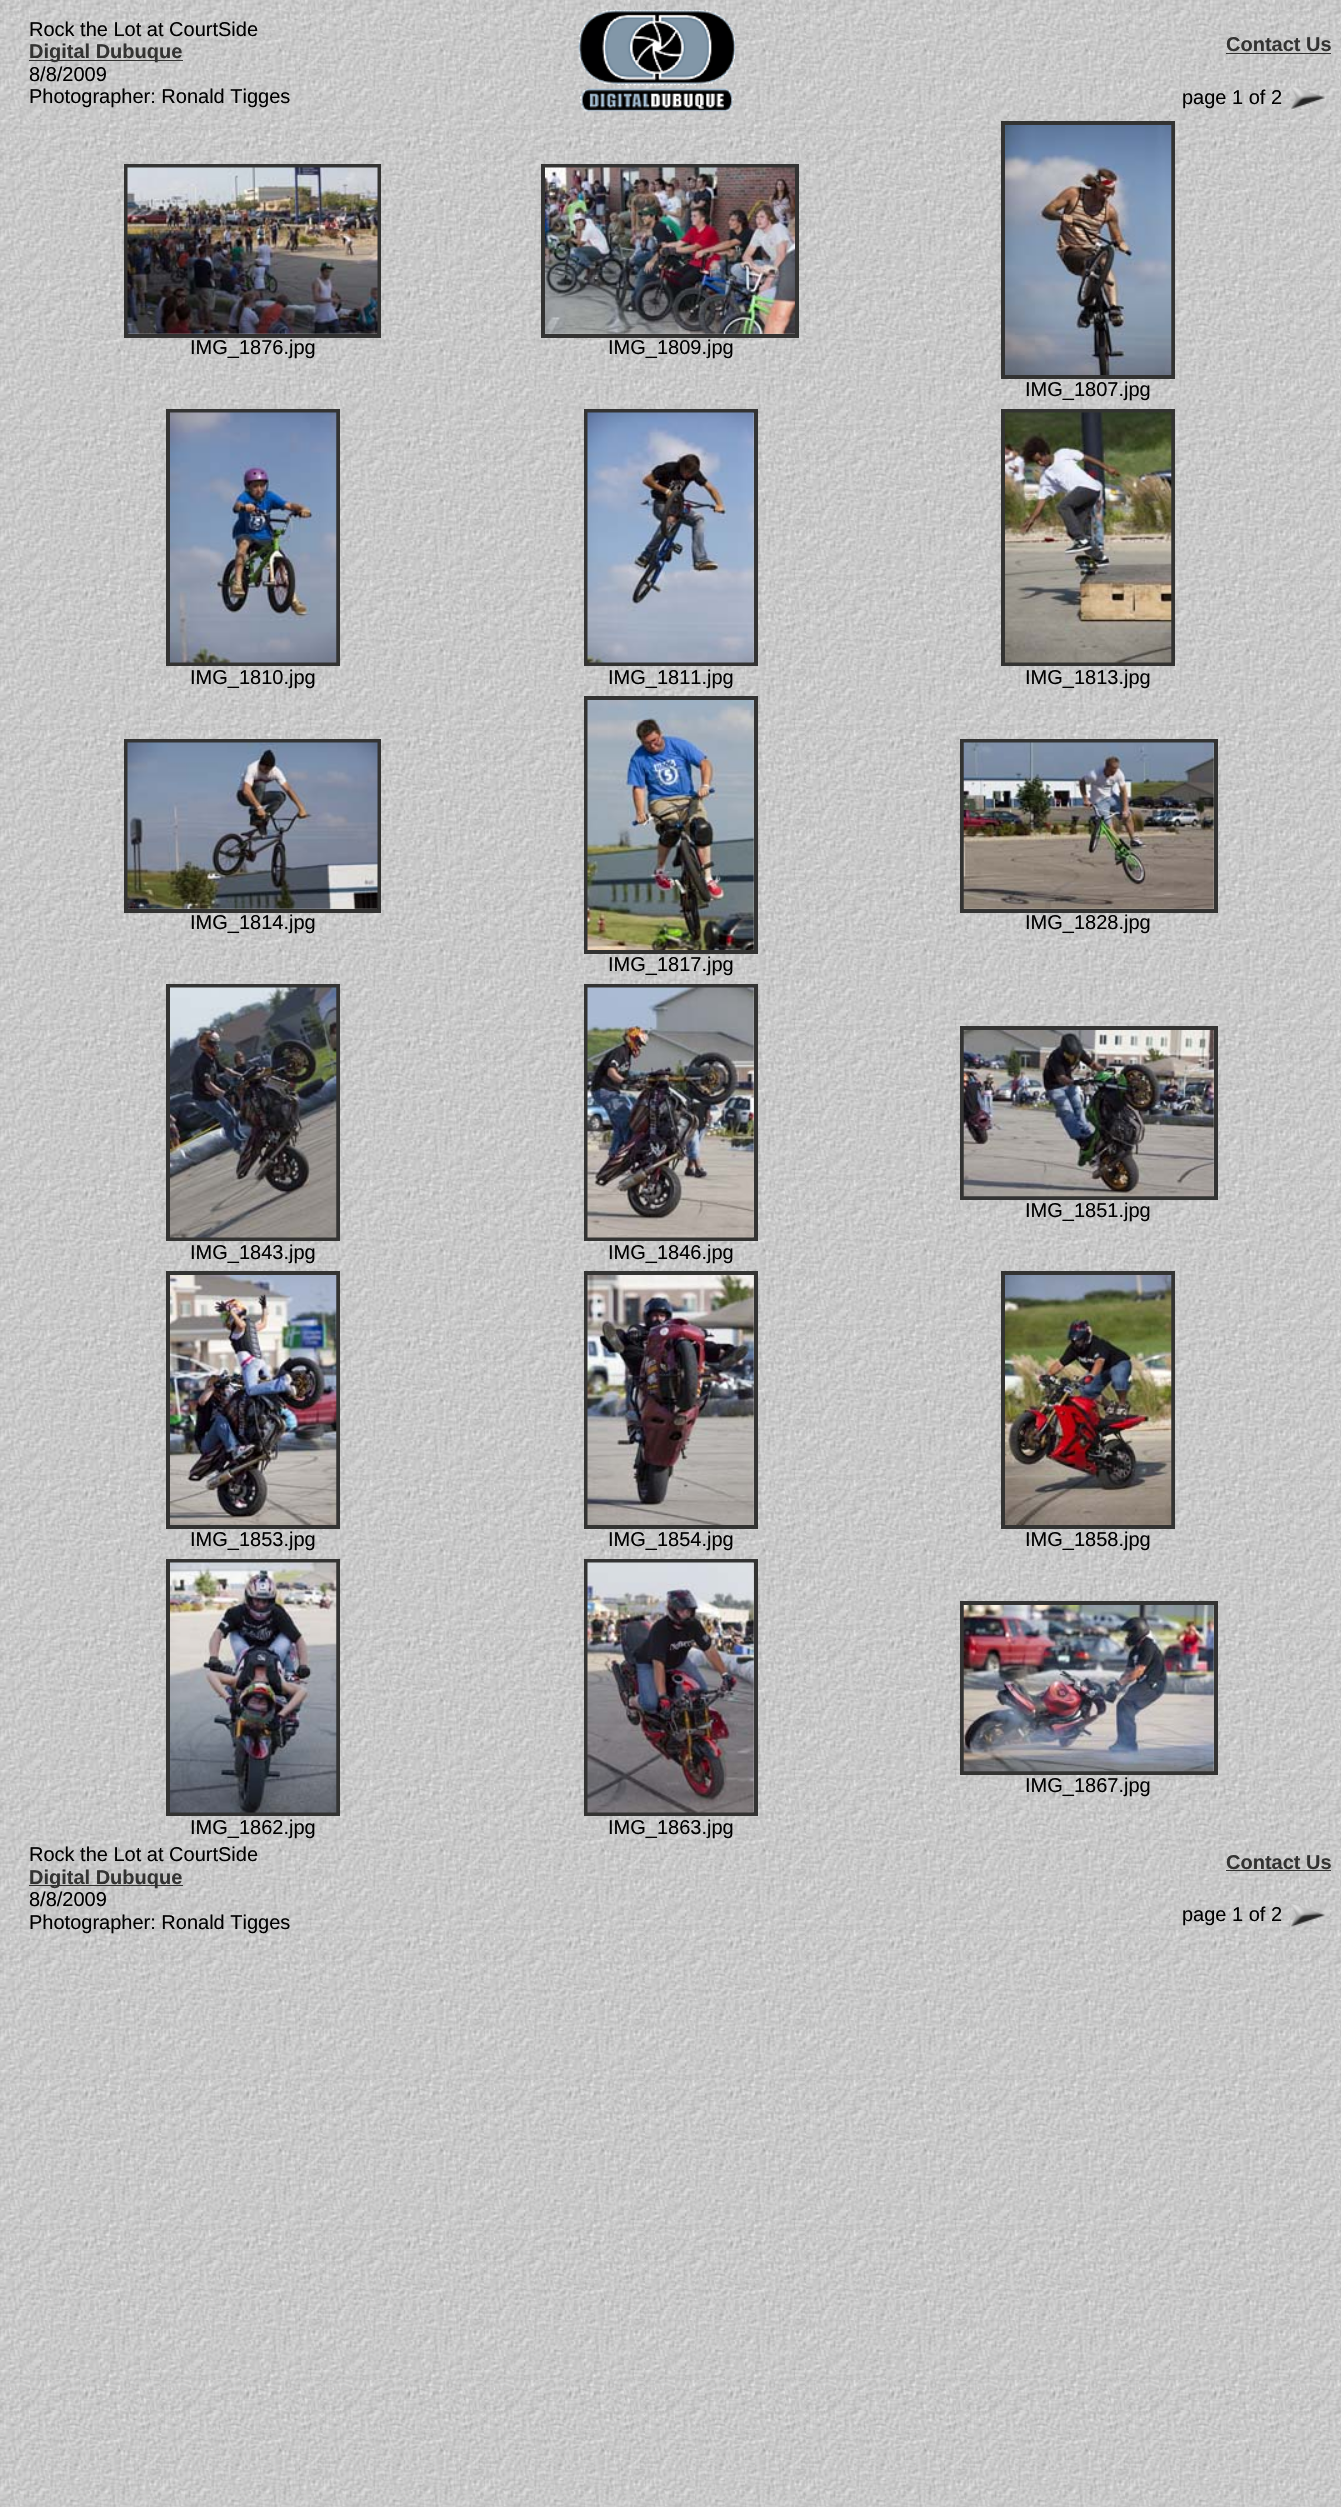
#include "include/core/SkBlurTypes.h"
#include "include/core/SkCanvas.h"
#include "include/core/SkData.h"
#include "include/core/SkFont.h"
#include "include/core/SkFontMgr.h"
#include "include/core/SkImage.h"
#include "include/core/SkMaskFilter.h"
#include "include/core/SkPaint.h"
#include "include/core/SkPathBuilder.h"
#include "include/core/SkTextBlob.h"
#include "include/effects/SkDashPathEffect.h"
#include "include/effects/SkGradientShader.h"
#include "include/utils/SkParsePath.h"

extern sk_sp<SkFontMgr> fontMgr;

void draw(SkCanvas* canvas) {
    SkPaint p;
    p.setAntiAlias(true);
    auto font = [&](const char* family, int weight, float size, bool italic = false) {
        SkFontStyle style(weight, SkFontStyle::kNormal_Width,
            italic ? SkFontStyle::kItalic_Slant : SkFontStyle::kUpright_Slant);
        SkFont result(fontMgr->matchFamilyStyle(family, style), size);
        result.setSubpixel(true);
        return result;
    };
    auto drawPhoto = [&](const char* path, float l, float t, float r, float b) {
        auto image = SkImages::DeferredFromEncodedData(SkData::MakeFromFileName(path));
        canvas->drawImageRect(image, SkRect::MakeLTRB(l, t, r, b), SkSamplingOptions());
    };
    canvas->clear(0xFFFFFFFF);
    drawPhoto("media/1.png", 0, 0, 1341, 2507);
    auto font1 = font("Liberation Sans", 400, 20);
    p.setColor(0xFF000000);
    canvas->drawString("Rock the Lot at CourtSide", 29, 36, font1, p);
    p.setColor(0xFF333332);
    canvas->drawRect(SkRect::MakeLTRB(29, 60, 183, 61), p);
    auto font2 = font("Liberation Sans", 700, 20);
    canvas->drawString("Digital Dubuque", 29, 58, font2, p);
    p.setColor(0xFF000000);
    canvas->drawString("8/8/2009", 29, 81, font1, p);
    canvas->drawString("Photographer: Ronald Tigges", 29, 103, font1, p);
    drawPhoto("media/2.png", 578, 10, 735, 112);
    p.setColor(0xFF333332);
    canvas->drawString("Contact Us", 1226, 51, font2, p);
    canvas->drawRect(SkRect::MakeLTRB(1226, 53, 1331, 54), p);
    p.setColor(0xFF000000);
    canvas->drawString("page 1 of 2", 1182, 104, font1, p);
    drawPhoto("media/3.png", 1291, 86, 1325, 110);
    p.setStyle(SkPaint::kStroke_Style);
    p.setStrokeWidth(4);
    p.setColor(0xFF333332);
    canvas->drawRect(SkRect::MakeLTRB(126, 166, 379, 336), p);
    drawPhoto("media/4.png", 127, 167, 378, 334);
    p.setStyle(SkPaint::kFill_Style);
    p.setColor(0xFF000000);
    canvas->drawString("IMG_1876.jpg", 190, 354, font1, p);
    p.setStyle(SkPaint::kStroke_Style);
    p.setColor(0xFF333332);
    canvas->drawRect(SkRect::MakeLTRB(543, 166, 797, 336), p);
    drawPhoto("media/5.png", 545, 167, 795, 334);
    p.setStyle(SkPaint::kFill_Style);
    p.setColor(0xFF000000);
    canvas->drawString("IMG_1809.jpg", 608, 354, font1, p);
    p.setStyle(SkPaint::kStroke_Style);
    p.setColor(0xFF333332);
    canvas->drawRect(SkRect::MakeLTRB(1003, 123, 1173, 377), p);
    drawPhoto("media/6.png", 1005, 125, 1172, 375);
    p.setStyle(SkPaint::kFill_Style);
    p.setColor(0xFF000000);
    canvas->drawString("IMG_1807.jpg", 1025, 396, font1, p);
    p.setStyle(SkPaint::kStroke_Style);
    p.setColor(0xFF333332);
    canvas->drawRect(SkRect::MakeLTRB(168, 411, 338, 664), p);
    drawPhoto("media/7.png", 170, 412, 337, 663);
    p.setStyle(SkPaint::kFill_Style);
    p.setColor(0xFF000000);
    canvas->drawString("IMG_1810.jpg", 190, 684, font1, p);
    p.setStyle(SkPaint::kStroke_Style);
    p.setColor(0xFF333332);
    canvas->drawRect(SkRect::MakeLTRB(586, 411, 756, 664), p);
    drawPhoto("media/8.png", 587, 412, 754, 663);
    p.setStyle(SkPaint::kFill_Style);
    p.setColor(0xFF000000);
    canvas->drawString("IMG_1811.jpg", 608, 684, font1, p);
    p.setStyle(SkPaint::kStroke_Style);
    p.setColor(0xFF333332);
    canvas->drawRect(SkRect::MakeLTRB(1003, 411, 1173, 664), p);
    drawPhoto("media/9.png", 1005, 412, 1172, 663);
    p.setStyle(SkPaint::kFill_Style);
    p.setColor(0xFF000000);
    canvas->drawString("IMG_1813.jpg", 1025, 684, font1, p);
    p.setStyle(SkPaint::kStroke_Style);
    p.setColor(0xFF333332);
    canvas->drawRect(SkRect::MakeLTRB(126, 741, 379, 911), p);
    drawPhoto("media/10.png", 127, 742, 378, 909);
    p.setStyle(SkPaint::kFill_Style);
    p.setColor(0xFF000000);
    canvas->drawString("IMG_1814.jpg", 190, 929, font1, p);
    p.setStyle(SkPaint::kStroke_Style);
    p.setColor(0xFF333332);
    canvas->drawRect(SkRect::MakeLTRB(962, 741, 1216, 911), p);
    drawPhoto("media/11.png", 963, 742, 1214, 909);
    p.setStyle(SkPaint::kFill_Style);
    p.setColor(0xFF000000);
    canvas->drawString("IMG_1828.jpg", 1025, 929, font1, p);
    p.setStyle(SkPaint::kStroke_Style);
    p.setColor(0xFF333332);
    canvas->drawRect(SkRect::MakeLTRB(586, 698, 756, 952), p);
    drawPhoto("media/12.png", 587, 700, 754, 950);
    p.setStyle(SkPaint::kFill_Style);
    p.setColor(0xFF000000);
    canvas->drawString("IMG_1817.jpg", 608, 971, font1, p);
    p.setStyle(SkPaint::kStroke_Style);
    p.setColor(0xFF333332);
    canvas->drawRect(SkRect::MakeLTRB(962, 1028, 1216, 1198), p);
    drawPhoto("media/13.png", 963, 1030, 1214, 1197);
    p.setStyle(SkPaint::kFill_Style);
    p.setColor(0xFF000000);
    canvas->drawString("IMG_1851.jpg", 1025, 1217, font1, p);
    p.setStyle(SkPaint::kStroke_Style);
    p.setColor(0xFF333332);
    canvas->drawRect(SkRect::MakeLTRB(168, 986, 338, 1239), p);
    drawPhoto("media/14.png", 170, 987, 337, 1238);
    p.setStyle(SkPaint::kFill_Style);
    p.setColor(0xFF000000);
    canvas->drawString("IMG_1843.jpg", 190, 1259, font1, p);
    p.setStyle(SkPaint::kStroke_Style);
    p.setColor(0xFF333332);
    canvas->drawRect(SkRect::MakeLTRB(586, 986, 756, 1239), p);
    drawPhoto("media/15.png", 587, 987, 754, 1238);
    p.setStyle(SkPaint::kFill_Style);
    p.setColor(0xFF000000);
    canvas->drawString("IMG_1846.jpg", 608, 1259, font1, p);
    p.setStyle(SkPaint::kStroke_Style);
    p.setColor(0xFF333332);
    canvas->drawRect(SkRect::MakeLTRB(168, 1273, 338, 1527), p);
    drawPhoto("media/16.png", 170, 1275, 337, 1525);
    p.setStyle(SkPaint::kFill_Style);
    p.setColor(0xFF000000);
    canvas->drawString("IMG_1853.jpg", 190, 1546, font1, p);
    p.setStyle(SkPaint::kStroke_Style);
    p.setColor(0xFF333332);
    canvas->drawRect(SkRect::MakeLTRB(586, 1273, 756, 1527), p);
    drawPhoto("media/17.png", 587, 1275, 754, 1525);
    p.setStyle(SkPaint::kFill_Style);
    p.setColor(0xFF000000);
    canvas->drawString("IMG_1854.jpg", 608, 1546, font1, p);
    p.setStyle(SkPaint::kStroke_Style);
    p.setColor(0xFF333332);
    canvas->drawRect(SkRect::MakeLTRB(1003, 1273, 1173, 1527), p);
    drawPhoto("media/18.png", 1005, 1275, 1172, 1525);
    p.setStyle(SkPaint::kFill_Style);
    p.setColor(0xFF000000);
    canvas->drawString("IMG_1858.jpg", 1025, 1546, font1, p);
    p.setStyle(SkPaint::kStroke_Style);
    p.setColor(0xFF333332);
    canvas->drawRect(SkRect::MakeLTRB(962, 1603, 1216, 1773), p);
    drawPhoto("media/19.png", 963, 1605, 1214, 1772);
    p.setStyle(SkPaint::kFill_Style);
    p.setColor(0xFF000000);
    canvas->drawString("IMG_1867.jpg", 1025, 1792, font1, p);
    p.setStyle(SkPaint::kStroke_Style);
    p.setColor(0xFF333332);
    canvas->drawRect(SkRect::MakeLTRB(168, 1561, 338, 1814), p);
    drawPhoto("media/20.png", 170, 1562, 337, 1813);
    p.setStyle(SkPaint::kFill_Style);
    p.setColor(0xFF000000);
    canvas->drawString("IMG_1862.jpg", 190, 1834, font1, p);
    p.setStyle(SkPaint::kStroke_Style);
    p.setColor(0xFF333332);
    canvas->drawRect(SkRect::MakeLTRB(586, 1561, 756, 1814), p);
    drawPhoto("media/21.png", 587, 1562, 754, 1813);
    p.setStyle(SkPaint::kFill_Style);
    p.setColor(0xFF000000);
    canvas->drawString("IMG_1863.jpg", 608, 1834, font1, p);
    canvas->drawString("Rock the Lot at CourtSide", 29, 1861, font1, p);
    p.setColor(0xFF333332);
    canvas->drawRect(SkRect::MakeLTRB(29, 1885, 183, 1886), p);
    canvas->drawString("Digital Dubuque", 29, 1884, font2, p);
    p.setColor(0xFF000000);
    canvas->drawString("8/8/2009", 29, 1906, font1, p);
    canvas->drawString("Photographer: Ronald Tigges", 29, 1929, font1, p);
    p.setColor(0xFF333332);
    canvas->drawString("Contact Us", 1226, 1869, font2, p);
    canvas->drawRect(SkRect::MakeLTRB(1226, 1870, 1331, 1871), p);
    p.setColor(0xFF000000);
    canvas->drawString("page 1 of 2", 1182, 1921, font1, p);
    drawPhoto("media/22.png", 1291, 1904, 1326, 1928);
}
